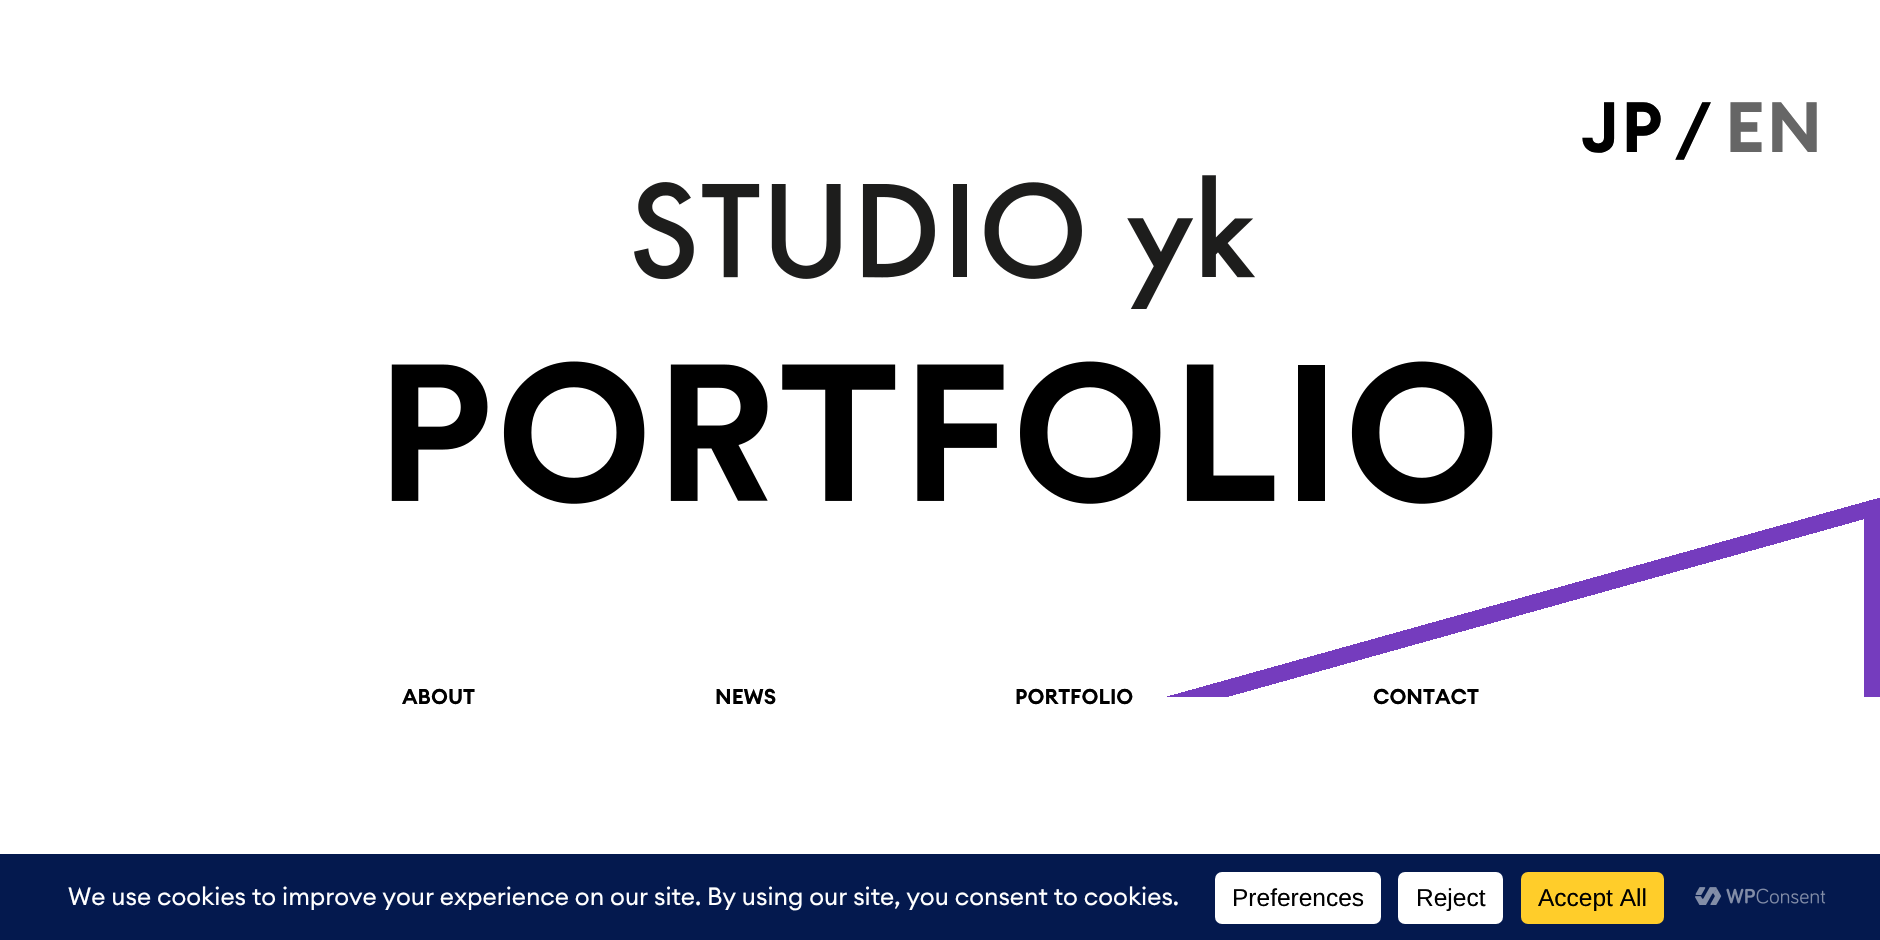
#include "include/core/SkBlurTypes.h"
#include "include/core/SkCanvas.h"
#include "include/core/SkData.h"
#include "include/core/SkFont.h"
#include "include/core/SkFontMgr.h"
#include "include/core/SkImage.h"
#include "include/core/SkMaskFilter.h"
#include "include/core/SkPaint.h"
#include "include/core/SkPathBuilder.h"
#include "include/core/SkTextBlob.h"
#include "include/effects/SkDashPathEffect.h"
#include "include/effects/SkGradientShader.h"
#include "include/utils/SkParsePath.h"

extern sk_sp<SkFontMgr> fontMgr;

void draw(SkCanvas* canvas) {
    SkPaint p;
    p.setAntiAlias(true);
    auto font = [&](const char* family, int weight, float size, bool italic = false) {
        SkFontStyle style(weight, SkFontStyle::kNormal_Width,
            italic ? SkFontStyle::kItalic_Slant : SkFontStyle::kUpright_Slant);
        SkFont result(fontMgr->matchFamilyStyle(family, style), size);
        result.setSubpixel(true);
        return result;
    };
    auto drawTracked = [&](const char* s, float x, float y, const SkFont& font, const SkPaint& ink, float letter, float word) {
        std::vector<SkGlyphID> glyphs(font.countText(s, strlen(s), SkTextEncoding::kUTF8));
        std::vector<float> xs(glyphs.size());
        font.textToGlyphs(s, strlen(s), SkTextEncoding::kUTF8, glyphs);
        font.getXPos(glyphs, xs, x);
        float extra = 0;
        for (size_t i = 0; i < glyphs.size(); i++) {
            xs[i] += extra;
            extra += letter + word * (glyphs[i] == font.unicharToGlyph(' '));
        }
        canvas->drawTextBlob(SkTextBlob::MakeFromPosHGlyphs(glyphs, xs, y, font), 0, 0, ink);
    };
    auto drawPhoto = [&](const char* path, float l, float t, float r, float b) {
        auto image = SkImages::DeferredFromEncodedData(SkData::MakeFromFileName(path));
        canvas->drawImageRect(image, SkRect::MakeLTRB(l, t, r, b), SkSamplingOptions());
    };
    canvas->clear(0xFFFFFFFF);
    auto font1 = font("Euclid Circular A", 600, 70);
    p.setColor(0xFF000000);
    drawTracked("JP", 1581, 152, font1, p, 2, 0);
    drawTracked("/", 1674, 152, font1, p, 2, 0);
    p.setColor(0xFF666666);
    drawTracked("EN", 1725, 152, font1, p, 2, 0);
    {
        const SkColor colors[] = {0xFF753CBE, 0xFFFFFFFF};
        const float stops[] = {0.5f, 0.5f};
        const SkPoint ends[] = {{1077, 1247}, {805, 272}};
        p.setShader(SkGradientShader::MakeLinear(ends, colors, stops, 2, SkTileMode::kClamp));
        p.setAlpha(255);
    }
    canvas->drawRect(SkRect::MakeLTRB(1167, 498, 1880, 697), p);
    drawPhoto("media/1.png", 391, 175, 1493, 504);
    {
        const SkColor colors[] = {0x00FFFFFF, 0xFFFFFFFF};
        const float stops[] = {0.5f, 0.5f};
        const SkPoint ends[] = {{805, 290}, {1077, 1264}};
        p.setShader(SkGradientShader::MakeLinear(ends, colors, stops, 2, SkTileMode::kClamp));
        p.setAlpha(255);
    }
    canvas->drawRect(SkRect::MakeLTRB(1229, 519, 1864, 697), p);
    auto font2 = font("Euclid Circular A", 600, 21);
    p.setShader(nullptr);
    p.setColor(0xFF000000);
    {
        const struct { const char* s; float x, y; } items[] = {
            {"ABOUT", 402, 704},
            {"NEWS", 715, 704},
            {"PORTFOLIO", 1015, 704},
            {"CONTACT", 1373, 704},
        };
        for (auto [s, x, y] : items) {
            canvas->drawString(s, x, y, font2, p);
        }
    }
    p.setColor(0xFF04194E);
    canvas->drawRect(SkRect::MakeLTRB(0, 854, 1880, 940), p);
    auto font3 = font("Euclid Circular A", 400, 24.5f);
    p.setColor(0xFFFFFFFF);
    canvas->drawString("We use cookies to improve your experience on our site. By using our site, you consent to cookies.", 68, 905, font3, p);
    canvas->drawRoundRect(SkRect::MakeLTRB(1215, 872, 1381, 924), 7, 7, p);
    auto font4 = font("Liberation Sans", 400, 24.5f);
    p.setColor(0xFF000000);
    canvas->drawString("Preferences", 1232, 906, font4, p);
    p.setColor(0xFFFFFFFF);
    canvas->drawRoundRect(SkRect::MakeLTRB(1398, 872, 1503, 924), 7, 7, p);
    p.setColor(0xFF000000);
    canvas->drawString("Reject", 1416, 906, font4, p);
    p.setColor(0xFFFFCD2A);
    canvas->drawRoundRect(SkRect::MakeLTRB(1521, 872, 1664, 924), 7, 7, p);
    p.setColor(0xFF000000);
    canvas->drawString("Accept All", 1538, 906, font4, p);
    drawPhoto("media/2.png", 1695, 887, 1826, 905);
}
